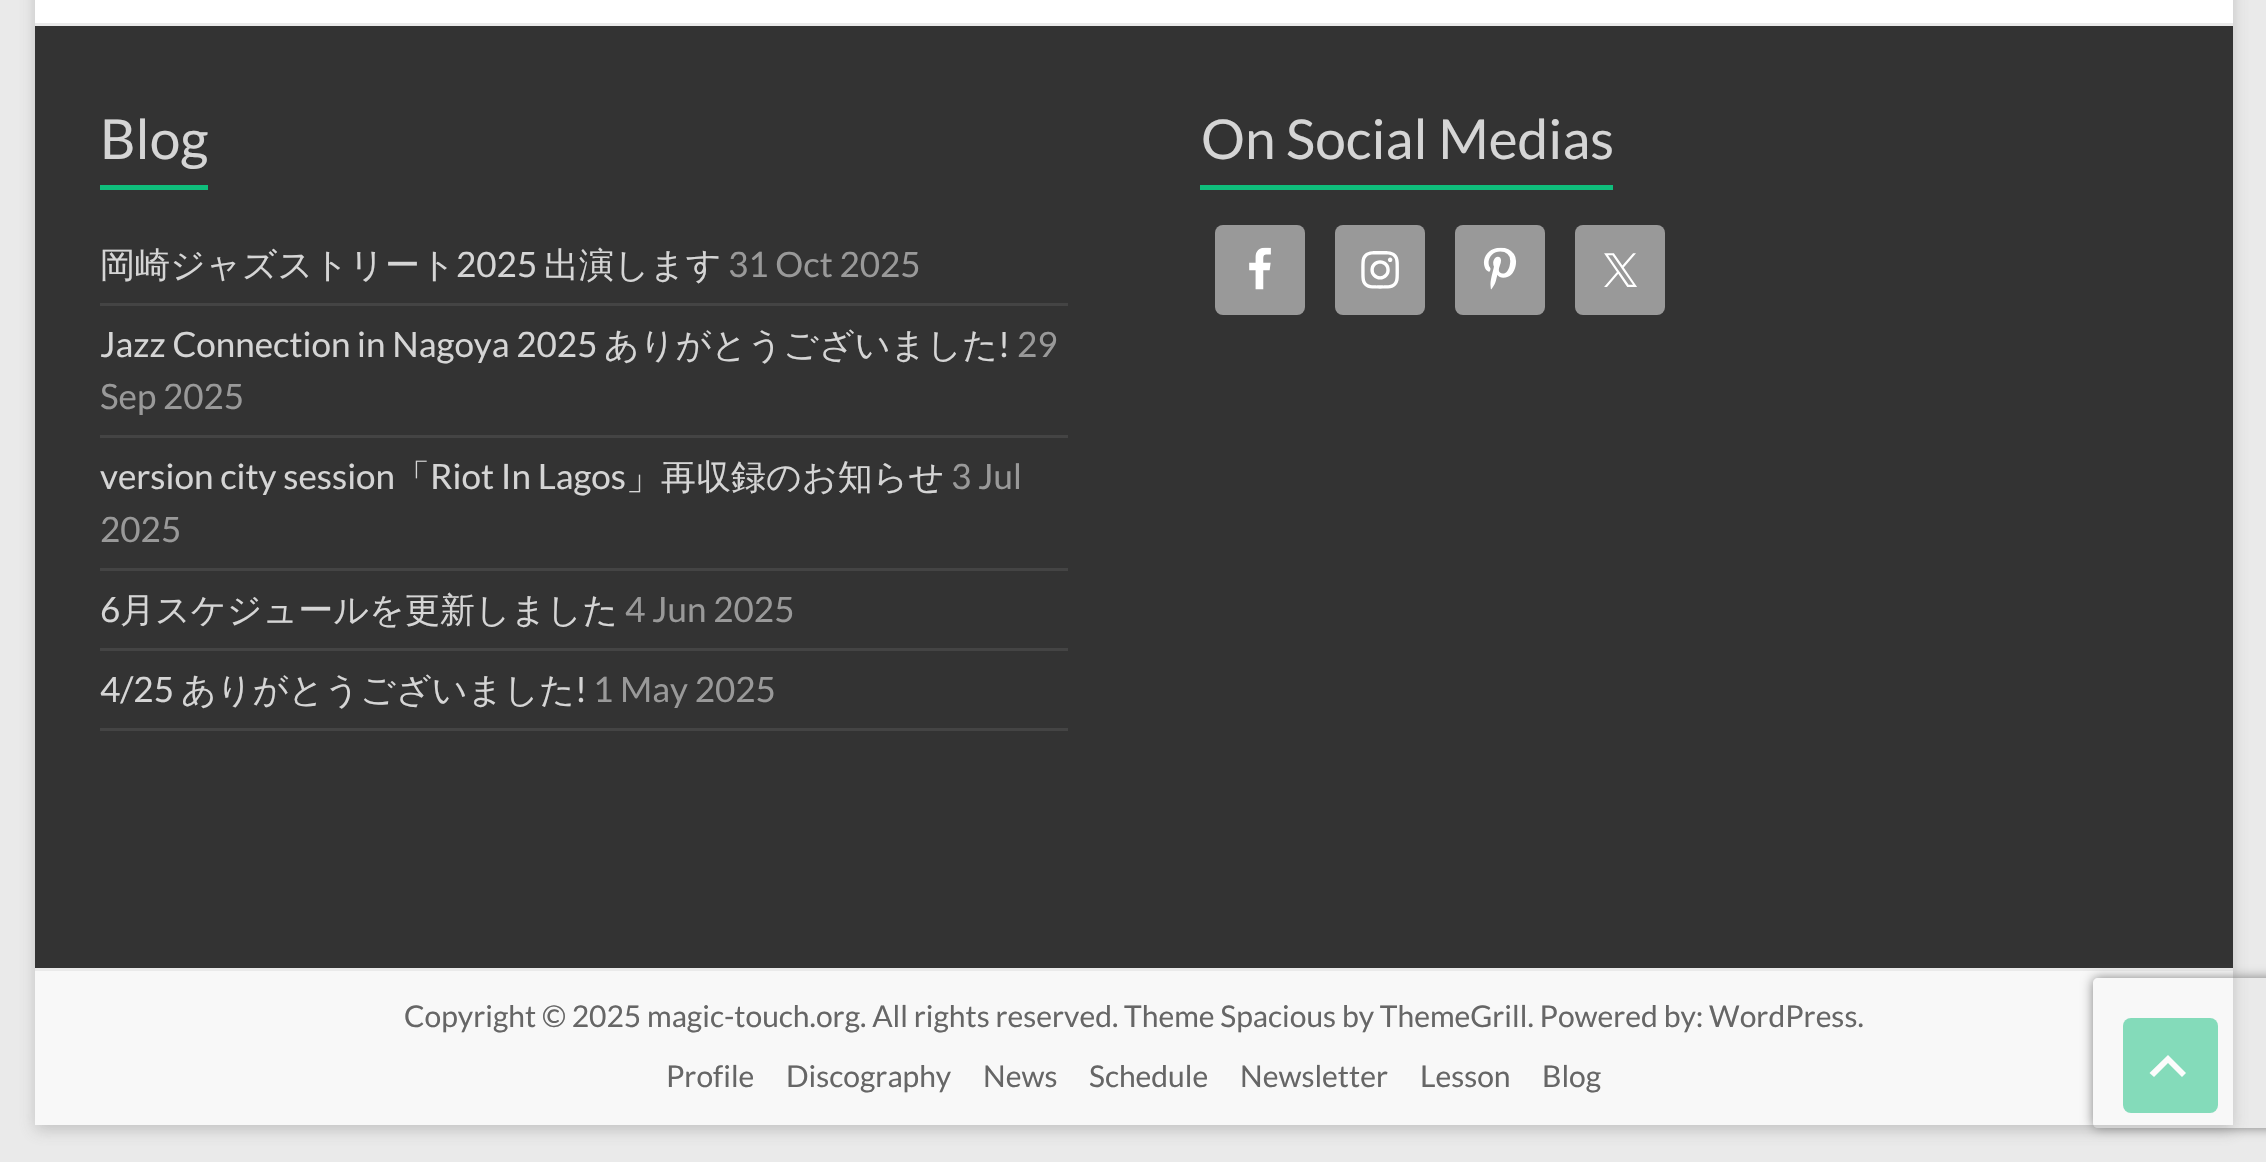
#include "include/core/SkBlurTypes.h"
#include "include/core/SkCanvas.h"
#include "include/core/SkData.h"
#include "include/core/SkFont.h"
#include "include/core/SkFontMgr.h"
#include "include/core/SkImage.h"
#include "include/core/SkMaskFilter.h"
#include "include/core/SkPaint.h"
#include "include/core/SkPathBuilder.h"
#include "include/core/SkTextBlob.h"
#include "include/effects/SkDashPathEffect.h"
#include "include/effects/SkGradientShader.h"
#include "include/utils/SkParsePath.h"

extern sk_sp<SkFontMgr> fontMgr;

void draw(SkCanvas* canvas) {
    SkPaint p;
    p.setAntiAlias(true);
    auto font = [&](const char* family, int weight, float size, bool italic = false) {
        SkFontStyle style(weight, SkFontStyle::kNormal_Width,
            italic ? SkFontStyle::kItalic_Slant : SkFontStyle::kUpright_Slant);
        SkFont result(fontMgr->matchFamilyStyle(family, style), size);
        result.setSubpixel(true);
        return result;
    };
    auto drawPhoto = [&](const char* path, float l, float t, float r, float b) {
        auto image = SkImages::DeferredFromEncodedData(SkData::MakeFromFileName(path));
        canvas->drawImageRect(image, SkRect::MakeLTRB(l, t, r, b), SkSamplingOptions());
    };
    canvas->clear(0xFFEAEAEA);
    p.setColor(0x4D646464);
    p.setMaskFilter(SkMaskFilter::MakeBlur(kNormal_SkBlurStyle, 7.5f));
    canvas->drawRect(SkRect::MakeLTRB(35, -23, 2233, 1130), p);
    p.setMaskFilter(nullptr);
    {
        const struct { float l, t, r, b; SkColor color; } items[] = {
            {35, 0, 2233, 23, 0xFFFFFFFF},
            {35, 26, 2233, 968, 0xFF333333},
            {35, 23, 2233, 26, 0xFFEAEAEA},
        };
        for (auto [l, t, r, b, color] : items) {
            p.setColor(color);
            canvas->drawRect(SkRect::MakeLTRB(l, t, r, b), p);
        }
    }
    auto font1 = font("Lato", 400, 55);
    p.setColor(0xFFD5D5D5);
    canvas->drawString("Blog", 100, 159, font1, p);
    p.setColor(0xFF0FBE7C);
    canvas->drawRect(SkRect::MakeLTRB(100, 185, 208, 190), p);
    p.setColor(0xFF444444);
    canvas->drawRect(SkRect::MakeLTRB(100, 303, 1068, 306), p);
    auto font2 = font("WenQuanYi Zen Hei", 500, 35);
    p.setColor(0xFFD5D5D5);
    canvas->drawString("岡崎ジャズストリート", 100, 277, font2, p);
    auto font3 = font("Lato", 400, 35);
    canvas->drawString("2025", 456, 277, font3, p);
    canvas->drawString("出演します", 544, 277, font2, p);
    p.setColor(0xFF999999);
    canvas->drawString("31 Oct 2025", 728, 277, font3, p);
    p.setColor(0xFF444444);
    canvas->drawRect(SkRect::MakeLTRB(100, 435, 1068, 438), p);
    p.setColor(0xFFD5D5D5);
    canvas->drawString("Jazz Connection in Nagoya 2025", 100, 357, font3, p);
    canvas->drawString("ありがとうございました", 604, 357, font2, p);
    canvas->drawString("!", 998, 357, font3, p);
    p.setColor(0xFF999999);
    canvas->drawString("29", 1017, 357, font3, p);
    canvas->drawString("Sep 2025", 100, 409, font3, p);
    p.setColor(0xFF444444);
    canvas->drawRect(SkRect::MakeLTRB(100, 568, 1068, 571), p);
    p.setColor(0xFFD5D5D5);
    canvas->drawString("version city session", 100, 489, font3, p);
    canvas->drawString("「", 395, 489, font2, p);
    canvas->drawString("Riot In Lagos", 430, 489, font3, p);
    canvas->drawString("」再収録のお知らせ", 626, 489, font2, p);
    p.setColor(0xFF999999);
    canvas->drawString("3 Jul", 951, 489, font3, p);
    canvas->drawString("2025", 100, 542, font3, p);
    p.setColor(0xFF444444);
    canvas->drawRect(SkRect::MakeLTRB(100, 648, 1068, 651), p);
    p.setColor(0xFFD5D5D5);
    canvas->drawString("6", 100, 622, font3, p);
    canvas->drawString("月スケジュールを更新しました", 120, 622, font2, p);
    p.setColor(0xFF999999);
    canvas->drawString("4 Jun 2025", 625, 622, font3, p);
    p.setColor(0xFF444444);
    canvas->drawRect(SkRect::MakeLTRB(100, 728, 1068, 731), p);
    p.setColor(0xFFD5D5D5);
    canvas->drawString("4/25", 100, 702, font3, p);
    canvas->drawString("ありがとうございました", 181, 702, font2, p);
    canvas->drawString("!", 575, 702, font3, p);
    p.setColor(0xFF999999);
    canvas->drawString("1 May 2025", 593, 702, font3, p);
    p.setColor(0xFFD5D5D5);
    canvas->drawString("On Social Medias", 1201, 159, font1, p);
    p.setColor(0xFF0FBE7C);
    canvas->drawRect(SkRect::MakeLTRB(1200, 185, 1613, 190), p);
    p.setColor(0xFF999999);
    canvas->drawRoundRect(SkRect::MakeLTRB(1215, 225, 1305, 315), 8, 8, p);
    drawPhoto("media/1.png", 1249, 247, 1271, 290);
    canvas->drawRoundRect(SkRect::MakeLTRB(1335, 225, 1425, 315), 8, 8, p);
    drawPhoto("media/2.png", 1361, 251, 1399, 289);
    canvas->drawRoundRect(SkRect::MakeLTRB(1455, 225, 1545, 315), 8, 8, p);
    drawPhoto("media/3.png", 1483, 247, 1517, 290);
    canvas->drawRoundRect(SkRect::MakeLTRB(1575, 225, 1665, 315), 8, 8, p);
    drawPhoto("media/4.png", 1604, 253, 1637, 287);
    p.setColor(0xFFF8F8F8);
    canvas->drawRect(SkRect::MakeLTRB(35, 971, 2233, 1125), p);
    p.setColor(0xFFEAEAEA);
    canvas->drawRect(SkRect::MakeLTRB(35, 968, 2233, 971), p);
    auto font4 = font("Lato", 400, 30);
    p.setColor(0xFF666666);
    {
        const struct { const char* s; float x, y; } items[] = {
            {"Copyright © 2025 magic-touch.org. All rights reserved. Theme Spacious by ThemeGrill. Powered by: WordPress.", 404, 1027},
            {"Profile", 666, 1087},
            {"Discography", 786, 1087},
            {"News", 983, 1087},
            {"Schedule", 1089, 1087},
            {"Newsletter", 1240, 1087},
            {"Lesson", 1420, 1087},
            {"Blog", 1542, 1087},
        };
        for (auto [s, x, y] : items) {
            canvas->drawString(s, x, y, font4, p);
        }
    }
    p.setColor(0xFF84DBBA);
    canvas->drawRoundRect(SkRect::MakeLTRB(2123, 1018, 2218, 1113), 8, 8, p);
    p.setColor(0xFFFCFCFC);
    canvas->drawPath(SkPathBuilder().moveTo(2182, 1077).lineTo(2168, 1063).lineTo(2154, 1077).lineTo(2149.5f, 1073).lineTo(2168, 1055).lineTo(2186, 1073).close().detach(), p);
    canvas->save();
    canvas->clipPath(SkPathBuilder(SkPathFillType::kEvenOdd).moveTo(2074, 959).lineTo(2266, 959).lineTo(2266, 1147).lineTo(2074, 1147).close().moveTo(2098, 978).lineTo(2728, 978).cubicTo(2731, 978, 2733, 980, 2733, 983).lineTo(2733, 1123).cubicTo(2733, 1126, 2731, 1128, 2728, 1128).lineTo(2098, 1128).cubicTo(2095, 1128, 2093, 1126, 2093, 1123).lineTo(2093, 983).cubicTo(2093, 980, 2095, 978, 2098, 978).close().detach(), true);
    p.setColor(0xFF808080);
    p.setMaskFilter(SkMaskFilter::MakeBlur(kNormal_SkBlurStyle, 6));
    canvas->drawRoundRect(SkRect::MakeLTRB(2093, 978, 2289, 1128), 5, 5, p);
    p.setMaskFilter(nullptr);
    canvas->restore();
}
